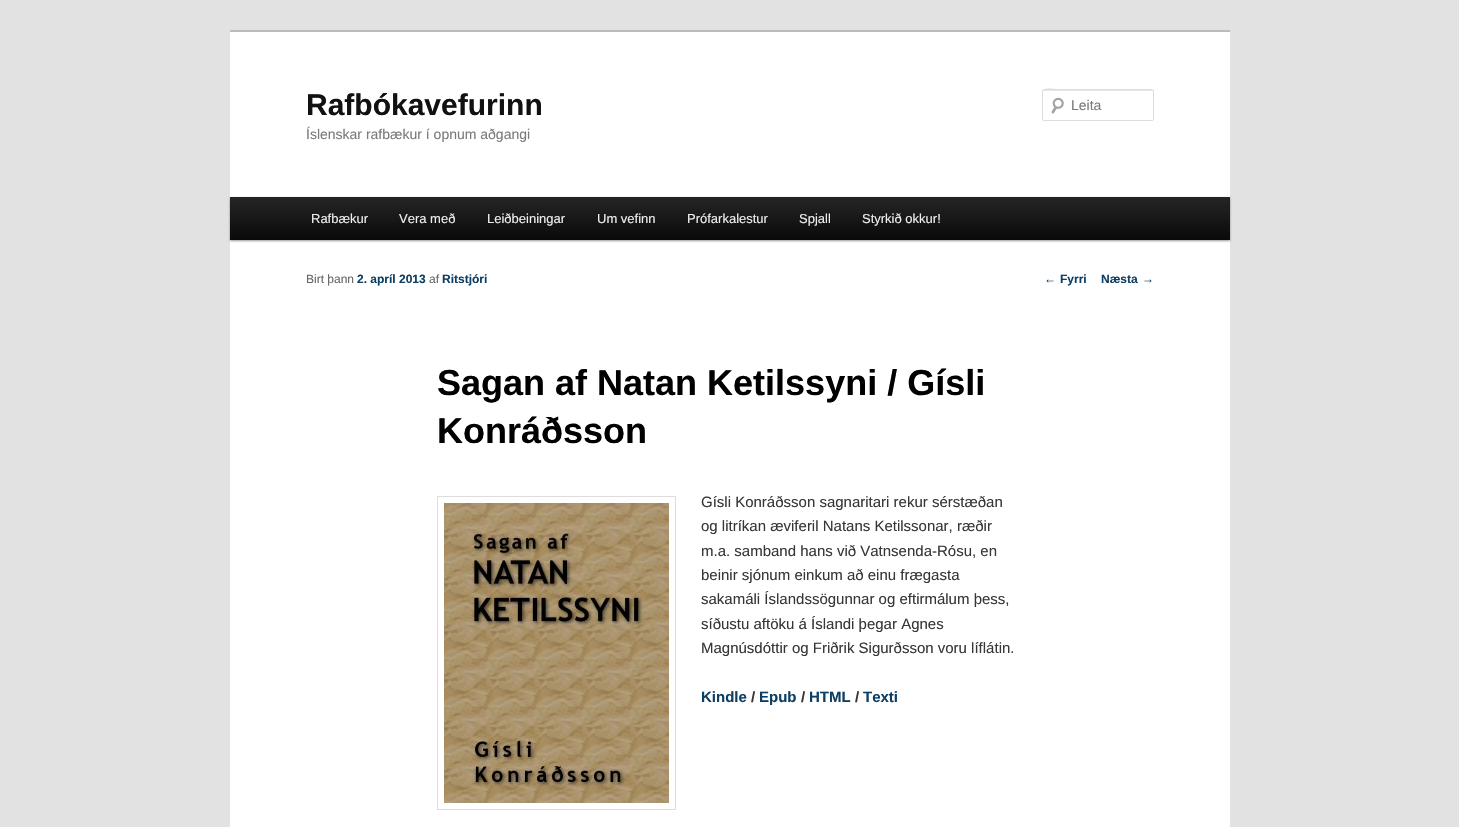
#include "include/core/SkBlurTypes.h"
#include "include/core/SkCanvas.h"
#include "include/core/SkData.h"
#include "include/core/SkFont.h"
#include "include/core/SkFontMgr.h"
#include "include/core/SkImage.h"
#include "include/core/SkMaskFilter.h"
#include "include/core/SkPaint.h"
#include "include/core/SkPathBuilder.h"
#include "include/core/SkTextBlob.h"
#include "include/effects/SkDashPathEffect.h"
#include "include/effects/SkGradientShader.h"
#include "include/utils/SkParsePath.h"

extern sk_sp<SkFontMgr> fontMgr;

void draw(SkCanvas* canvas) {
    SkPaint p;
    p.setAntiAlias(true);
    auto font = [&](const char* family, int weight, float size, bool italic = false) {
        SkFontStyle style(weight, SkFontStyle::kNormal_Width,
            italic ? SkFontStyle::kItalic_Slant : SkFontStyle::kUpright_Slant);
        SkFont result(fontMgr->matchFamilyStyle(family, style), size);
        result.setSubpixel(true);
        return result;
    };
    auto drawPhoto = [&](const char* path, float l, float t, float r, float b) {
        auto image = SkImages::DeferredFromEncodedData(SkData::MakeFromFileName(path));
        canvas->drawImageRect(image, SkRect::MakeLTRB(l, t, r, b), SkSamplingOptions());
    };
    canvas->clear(0xFFE2E2E2);
    p.setColor(0xFFFFFFFF);
    canvas->drawRect(SkRect::MakeLTRB(230, 32, 1230, 827), p);
    p.setColor(0xFFBBBBBB);
    canvas->drawRect(SkRect::MakeLTRB(230, 30, 1230, 32), p);
    auto font1 = font("Liberation Sans", 700, 30);
    p.setColor(0xFF111111);
    canvas->drawString("Rafbókavefurinn", 306, 115, font1, p);
    auto font2 = font("Liberation Sans", 400, 14);
    p.setColor(0xFF7A7A7A);
    canvas->drawString("Íslenskar rafbækur í opnum aðgangi", 306, 139, font2, p);
    drawPhoto("media/1.png", 1051, 97, 1064, 114);
    p.setColor(0xFFE6E6E6);
    canvas->drawPath(SkPathBuilder().moveTo(1044, 91).lineTo(1153, 91).lineTo(1153, 92).lineTo(1152, 90).lineTo(1062, 90).cubicTo(1058, 90, 1043, 85, 1043, 92).cubicTo(1043, 91, 1043, 91, 1044, 91).close().detach(), p);
    p.setStyle(SkPaint::kStroke_Style);
    p.setStrokeWidth(1);
    p.setColor(0xFFDDDDDD);
    canvas->drawRoundRect(SkRect::MakeLTRB(1042.5f, 89.5f, 1153.5f, 120.5f), 1.5f, 1.5f, p);
    p.setStyle(SkPaint::kFill_Style);
    p.setColor(0xFF7A7A7A);
    canvas->drawString("Leita", 1071, 110, font2, p);
    p.setColor(0x66000000);
    p.setMaskFilter(SkMaskFilter::MakeBlur(kNormal_SkBlurStyle, 1));
    canvas->drawRect(SkRect::MakeLTRB(230, 198, 1230, 241), p);
    p.setMaskFilter(nullptr);
    {
        const SkColor colors[] = {0xFF252525, 0xFF0A0A0A};
        const float stops[] = {0, 1};
        const SkPoint ends[] = {{730, 197}, {730, 240}};
        p.setShader(SkGradientShader::MakeLinear(ends, colors, stops, 2, SkTileMode::kClamp));
        p.setAlpha(255);
    }
    canvas->drawRect(SkRect::MakeLTRB(230, 197, 1230, 240), p);
    auto font3 = font("Liberation Sans", 400, 13);
    p.setShader(nullptr);
    p.setColor(0xFFEEEEEE);
    {
        const struct { const char* s; float x, y; } items[] = {
            {"Rafbækur", 311, 223},
            {"Vera með", 399, 223},
            {"Leiðbeiningar", 487, 223},
            {"Um vefinn", 597, 223},
            {"Prófarkalestur", 687, 223},
            {"Spjall", 799, 223},
            {"Styrkið okkur!", 862, 223},
        };
        for (auto [s, x, y] : items) {
            canvas->drawString(s, x, y, font3, p);
        }
    }
    auto font4 = font("Liberation Sans", 400, 12);
    p.setColor(0xFF666666);
    canvas->drawString("Birt þann", 306, 283, font4, p);
    auto font5 = font("Liberation Sans", 700, 12);
    p.setColor(0xFF0D3E63);
    canvas->drawString("2. apríl 2013", 357, 283, font5, p);
    p.setColor(0xFF666666);
    canvas->drawString("af", 429, 283, font4, p);
    p.setColor(0xFF0D3E63);
    canvas->drawString("Ritstjóri", 442, 283, font5, p);
    auto font6 = font("Liberation Sans", 700, 36);
    p.setColor(0xFF000000);
    canvas->drawString("Sagan af Natan Ketilssyni / Gísli", 437, 395, font6, p);
    canvas->drawString("Konráðsson", 437, 443, font6, p);
    p.setStyle(SkPaint::kStroke_Style);
    p.setColor(0xFFDDDDDD);
    canvas->drawRect(SkRect::MakeLTRB(437.5f, 496.5f, 675.5f, 809.5f), p);
    drawPhoto("media/2.png", 444, 503, 669, 803);
    auto font7 = font("Liberation Sans", 400, 15);
    p.setStyle(SkPaint::kFill_Style);
    p.setColor(0xFF373737);
    {
        const struct { const char* s; float x, y; } items[] = {
            {"Gísli Konráðsson sagnaritari rekur sérstæðan", 701, 507},
            {"og litríkan æviferil Natans Ketilssonar, ræðir", 701, 531},
            {"m.a. samband hans við Vatnsenda-Rósu, en", 701, 556},
            {"beinir sjónum einkum að einu frægasta", 701, 580},
            {"sakamáli Íslandssögunnar og eftirmálum þess,", 701, 604},
            {"síðustu aftöku á Íslandi þegar Agnes", 701, 629},
            {"Magnúsdóttir og Friðrik Sigurðsson voru líflátin.", 701, 653},
        };
        for (auto [s, x, y] : items) {
            canvas->drawString(s, x, y, font7, p);
        }
    }
    auto font8 = font("Liberation Sans", 700, 15);
    p.setColor(0xFF0D3E63);
    canvas->drawString("Kindle", 701, 702, font8, p);
    p.setColor(0xFF373737);
    canvas->drawString("/", 751, 702, font8, p);
    p.setColor(0xFF0D3E63);
    canvas->drawString("Epub", 759, 702, font8, p);
    p.setColor(0xFF373737);
    canvas->drawString("/", 801, 702, font8, p);
    p.setColor(0xFF0D3E63);
    canvas->drawString("HTML", 809, 702, font8, p);
    p.setColor(0xFF373737);
    canvas->drawString("/", 855, 702, font8, p);
    p.setColor(0xFF0D3E63);
    canvas->drawString("Texti", 863, 702, font8, p);
    canvas->drawString("←", 1044, 283, font4, p);
    canvas->drawString("Fyrri", 1060, 283, font5, p);
    canvas->drawString("Næsta", 1101, 283, font5, p);
    canvas->drawString("→", 1142, 283, font4, p);
}
